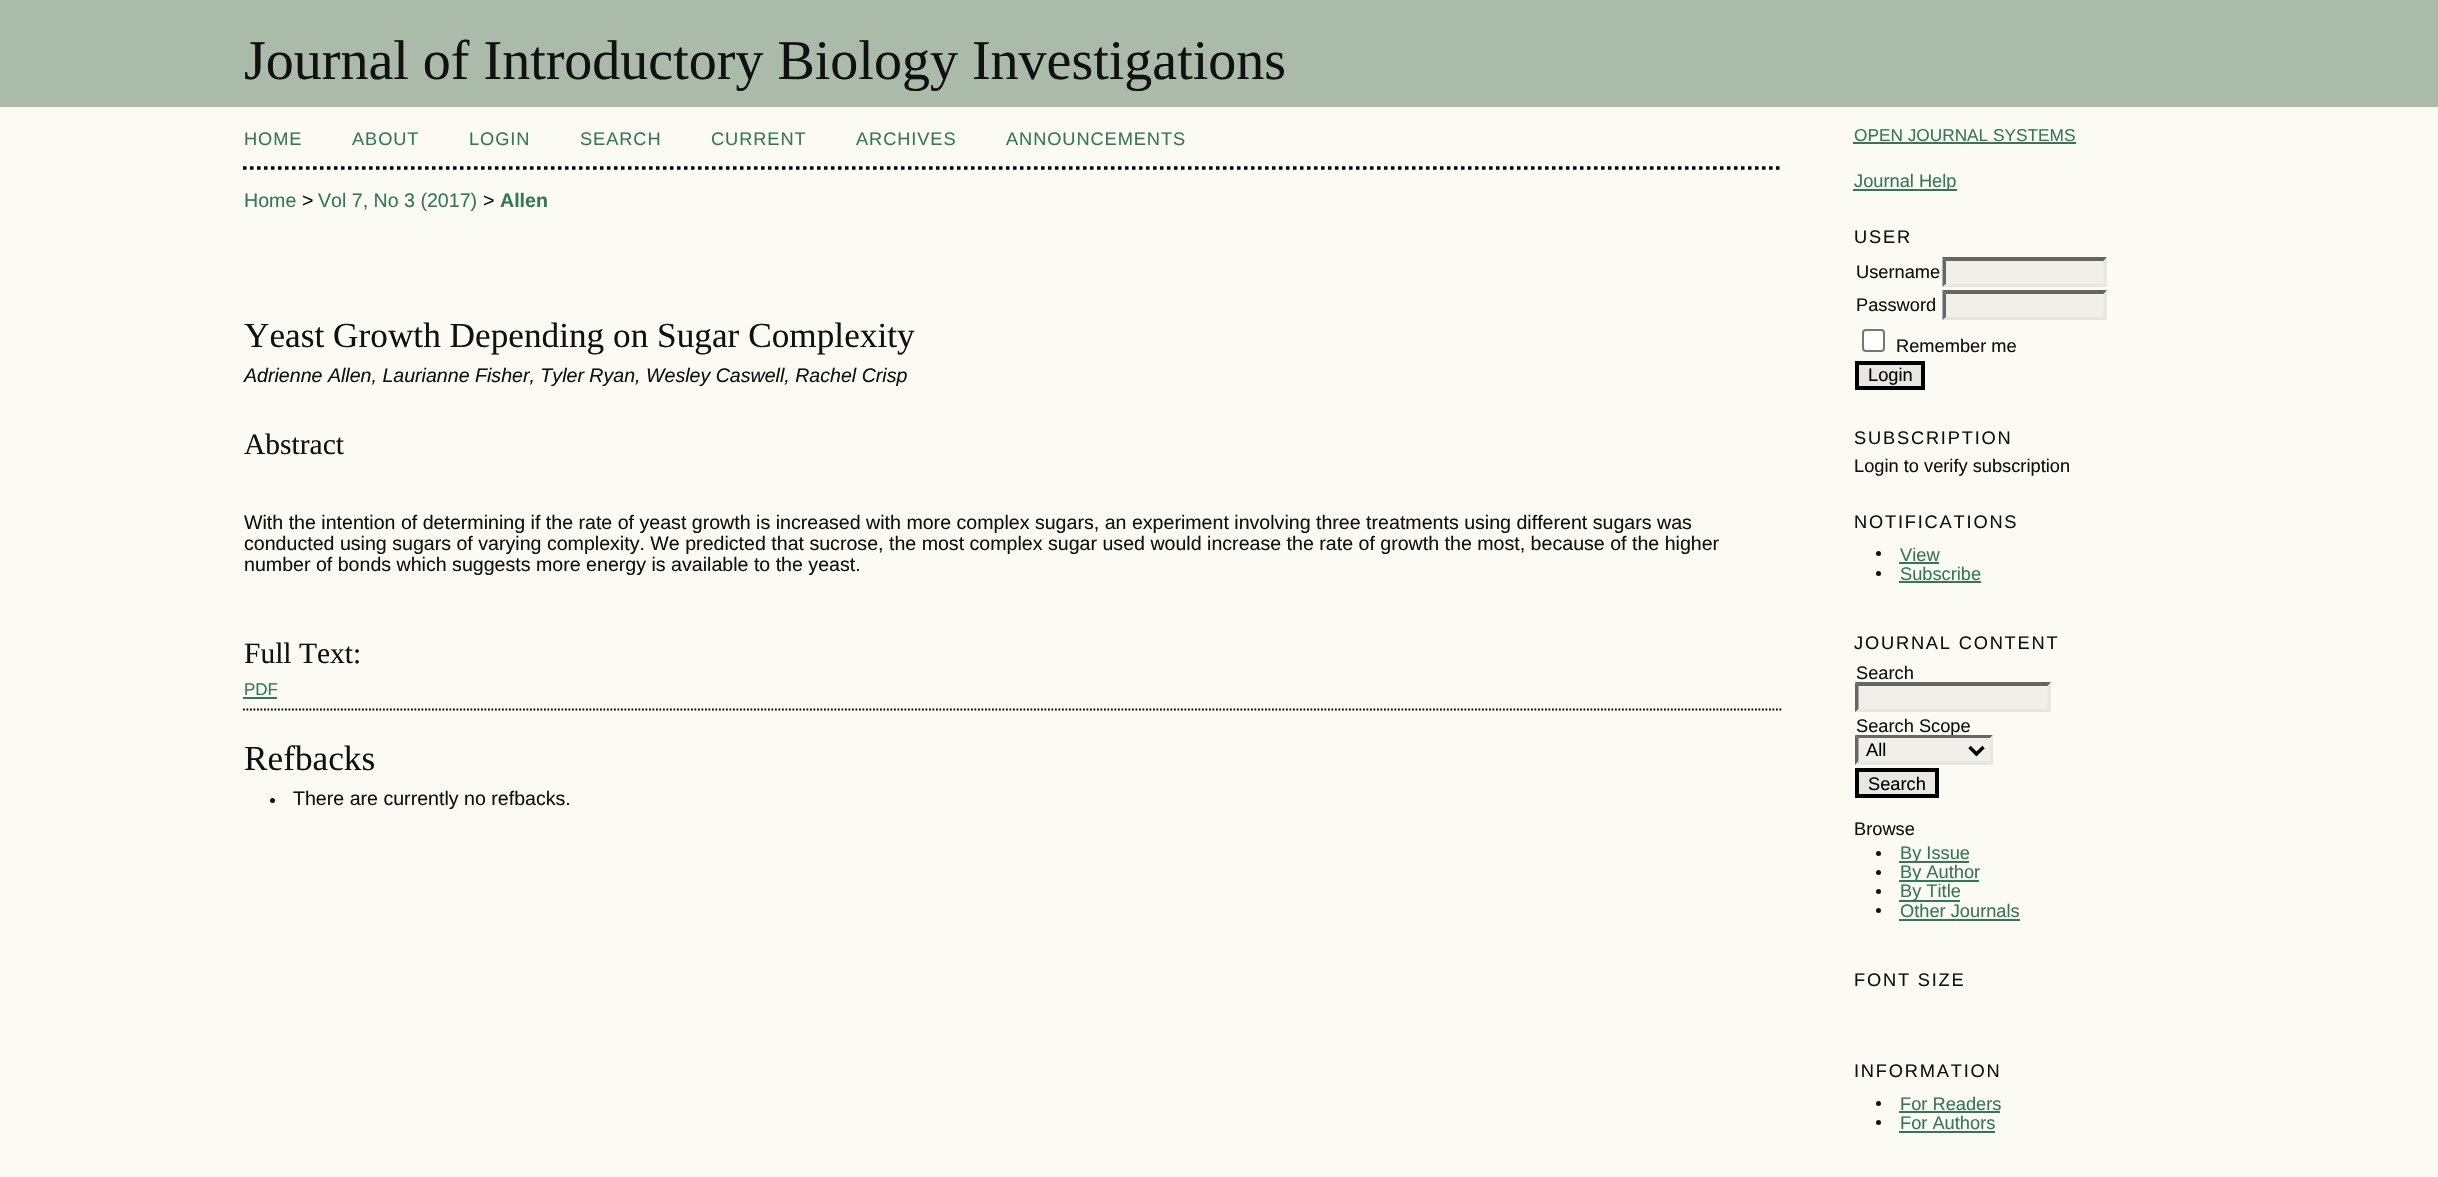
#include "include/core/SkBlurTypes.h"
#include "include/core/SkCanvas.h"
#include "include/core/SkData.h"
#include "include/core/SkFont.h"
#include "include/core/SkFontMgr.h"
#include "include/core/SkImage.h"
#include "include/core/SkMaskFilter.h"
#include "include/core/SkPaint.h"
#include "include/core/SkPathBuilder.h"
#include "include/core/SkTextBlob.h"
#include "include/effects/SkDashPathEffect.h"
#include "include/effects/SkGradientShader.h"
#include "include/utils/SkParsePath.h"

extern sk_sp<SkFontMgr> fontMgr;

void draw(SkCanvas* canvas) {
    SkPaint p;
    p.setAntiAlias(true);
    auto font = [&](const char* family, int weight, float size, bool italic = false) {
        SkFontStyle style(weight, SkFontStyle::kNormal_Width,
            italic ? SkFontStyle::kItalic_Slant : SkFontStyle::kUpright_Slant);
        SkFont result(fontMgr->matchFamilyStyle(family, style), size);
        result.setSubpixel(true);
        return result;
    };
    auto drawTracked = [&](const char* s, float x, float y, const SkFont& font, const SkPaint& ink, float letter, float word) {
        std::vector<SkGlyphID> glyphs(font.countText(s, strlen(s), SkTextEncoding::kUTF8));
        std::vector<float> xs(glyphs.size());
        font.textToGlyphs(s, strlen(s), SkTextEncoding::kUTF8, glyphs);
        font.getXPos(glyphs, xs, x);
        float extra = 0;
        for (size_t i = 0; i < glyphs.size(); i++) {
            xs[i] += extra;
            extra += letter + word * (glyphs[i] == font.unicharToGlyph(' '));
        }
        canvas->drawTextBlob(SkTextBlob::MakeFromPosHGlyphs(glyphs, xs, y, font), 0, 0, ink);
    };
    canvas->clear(0xFFFBFBF3);
    p.setColor(0xFFAABBAA);
    canvas->drawRect(SkRect::MakeLTRB(0, 0, 2438, 107), p);
    auto font1 = font("Liberation Serif", 400, 56);
    p.setColor(0xFF111111);
    canvas->drawString("Journal of Introductory Biology Investigations", 244, 79, font1, p);
    p.setStyle(SkPaint::kStroke_Style);
    p.setStrokeWidth(3.5f);
    p.setColor(0xFF000000);
    p.setPathEffect(SkDashPathEffect::Make({{3.5f, 3.5f}}, 0));
    canvas->drawPath(SkPathBuilder().moveTo(243, 168).lineTo(1781.5f, 168).detach(), p);
    p.setPathEffect(nullptr);
    auto font2 = font("Liberation Sans", 400, 18.25f);
    p.setStyle(SkPaint::kFill_Style);
    p.setColor(0xFF337755);
    {
        const struct { const char* s; float x, y; } items[] = {
            {"HOME", 244, 145},
            {"ABOUT", 352, 145},
            {"LOGIN", 469, 145},
            {"SEARCH", 580, 145},
            {"CURRENT", 711, 145},
            {"ARCHIVES", 856, 145},
            {"ANNOUNCEMENTS", 1006, 145},
        };
        for (auto [s, x, y] : items) {
            drawTracked(s, x, y, font2, p, 0.9f, 0);
        }
    }
    auto font3 = font("Liberation Sans", 400, 19.6f);
    canvas->drawString("Home", 244, 207, font3, p);
    p.setColor(0xFF111111);
    canvas->drawString(">", 302, 207, font3, p);
    p.setColor(0xFF337755);
    canvas->drawString("Vol 7, No 3 (2017)", 318, 207, font3, p);
    p.setColor(0xFF111111);
    canvas->drawString(">", 483, 207, font3, p);
    auto font4 = font("Liberation Sans", 700, 19.6f);
    p.setColor(0xFF337755);
    canvas->drawString("Allen", 500, 207, font4, p);
    auto font5 = font("Liberation Serif", 400, 35.25f);
    p.setColor(0xFF111111);
    canvas->drawString("Yeast Growth Depending on Sugar Complexity", 244, 347, font5, p);
    auto font6 = font("Liberation Sans", 400, 19.6f, true);
    canvas->drawString("Adrienne Allen, Laurianne Fisher, Tyler Ryan, Wesley Caswell, Rachel Crisp", 244, 382, font6, p);
    auto font7 = font("Liberation Serif", 400, 29.5f);
    canvas->drawString("Abstract", 244, 454, font7, p);
    {
        const struct { const char* s; float x, y; } items[] = {
            {"With the intention of determining if the rate of yeast growth is increased with more complex sugars, an experiment involving three treatments using different sugars was", 244, 529},
            {"conducted using sugars of varying complexity. We predicted that sucrose, the most complex sugar used would increase the rate of growth the most, because of the higher", 244, 550},
            {"number of bonds which suggests more energy is available to the yeast.", 244, 571},
        };
        for (auto [s, x, y] : items) {
            canvas->drawString(s, x, y, font3, p);
        }
    }
    canvas->drawString("Full Text:", 244, 663, font7, p);
    auto font8 = font("Liberation Sans", 400, 17);
    p.setColor(0xFF337755);
    canvas->drawString("PDF", 244, 695, font8, p);
    canvas->drawRect(SkRect::MakeLTRB(243, 697, 277, 699), p);
    p.setStyle(SkPaint::kStroke_Style);
    p.setStrokeWidth(1.8f);
    p.setColor(0xFF000000);
    p.setPathEffect(SkDashPathEffect::Make({{1.75f, 1.75f}}, 0));
    canvas->drawPath(SkPathBuilder().moveTo(243, 709.5f).lineTo(1781.5f, 709.5f).detach(), p);
    p.setPathEffect(nullptr);
    p.setStyle(SkPaint::kFill_Style);
    p.setColor(0xFF111111);
    canvas->drawString("Refbacks", 244, 770, font5, p);
    canvas->drawCircle(272.5f, 800.5f, 2.5f, p);
    canvas->drawString("There are currently no refbacks.", 293, 805, font3, p);
    auto font9 = font("Liberation Sans", 400, 17.25f);
    p.setColor(0xFF337755);
    canvas->drawString("OPEN JOURNAL SYSTEMS", 1854, 141, font9, p);
    canvas->drawRect(SkRect::MakeLTRB(1853, 142, 2076, 144), p);
    canvas->drawRect(SkRect::MakeLTRB(1853, 189, 1957, 191), p);
    canvas->drawString("Journal Help", 1854, 187, font2, p);
    p.setColor(0xFF111111);
    drawTracked("USER", 1854, 243, font2, p, 1.8f, 0);
    canvas->drawString("Username", 1856, 278, font2, p);
    p.setColor(0xFFF0F0E8);
    canvas->drawRect(SkRect::MakeLTRB(1943, 257, 2107, 287), p);
    p.setColor(0xFF666666);
    canvas->drawPath(SkPathBuilder().moveTo(1942, 257).lineTo(2107, 257).lineTo(2104, 261).lineTo(1946, 261).close().detach(), p);
    p.setColor(0xFFE8E8E1);
    canvas->drawPath(SkPathBuilder().moveTo(2107, 257).lineTo(2107, 287).lineTo(2103.5f, 283.5f).lineTo(2103.5f, 261).close().detach(), p);
    canvas->drawPath(SkPathBuilder().moveTo(2107, 287).lineTo(1942, 287).lineTo(1946, 284).lineTo(2104, 284).close().detach(), p);
    p.setColor(0xFF666666);
    canvas->drawPath(SkPathBuilder().moveTo(1942.5f, 287).lineTo(1942.5f, 257).lineTo(1946, 261).lineTo(1946, 283.5f).close().detach(), p);
    p.setColor(0xFF111111);
    canvas->drawString("Password", 1856, 311, font2, p);
    p.setColor(0xFFF0F0E8);
    canvas->drawRect(SkRect::MakeLTRB(1943, 291, 2107, 320), p);
    p.setColor(0xFF666666);
    canvas->drawPath(SkPathBuilder().moveTo(1942, 290).lineTo(2107, 290).lineTo(2104, 294).lineTo(1946, 294).close().detach(), p);
    p.setColor(0xFFE8E8E1);
    canvas->drawPath(SkPathBuilder().moveTo(2107, 290.5f).lineTo(2107, 320).lineTo(2103.5f, 317).lineTo(2103.5f, 294).close().detach(), p);
    canvas->drawPath(SkPathBuilder().moveTo(2107, 320).lineTo(1942, 320).lineTo(1946, 317).lineTo(2104, 317).close().detach(), p);
    p.setColor(0xFF666666);
    canvas->drawPath(SkPathBuilder().moveTo(1942.5f, 320).lineTo(1942.5f, 290.5f).lineTo(1946, 294).lineTo(1946, 317).close().detach(), p);
    p.setColor(0xFFFFFFFF);
    canvas->drawRoundRect(SkRect::MakeLTRB(1863, 330, 1884, 351), 3, 3, p);
    p.setStyle(SkPaint::kStroke_Style);
    p.setStrokeWidth(2);
    p.setColor(0xFF767676);
    canvas->drawRoundRect(SkRect::MakeLTRB(1863, 330, 1884, 351), 3, 3, p);
    p.setStyle(SkPaint::kFill_Style);
    p.setColor(0xFF111111);
    canvas->drawString("Remember me", 1896, 352, font2, p);
    p.setColor(0xFFE8E8E1);
    canvas->drawRect(SkRect::MakeLTRB(1857, 363, 1923, 388), p);
    p.setStyle(SkPaint::kStroke_Style);
    p.setStrokeWidth(4);
    p.setColor(0xFF000000);
    canvas->drawRect(SkRect::MakeLTRB(1857, 363, 1923, 388), p);
    p.setStyle(SkPaint::kFill_Style);
    canvas->drawString("Login", 1868, 381, font2, p);
    p.setColor(0xFF111111);
    drawTracked("SUBSCRIPTION", 1854, 444, font2, p, 1.8f, 0);
    canvas->drawString("Login to verify subscription", 1854, 472, font2, p);
    drawTracked("NOTIFICATIONS", 1854, 528, font2, p, 1.8f, 0);
    canvas->drawCircle(1878.5f, 553.5f, 2.5f, p);
    p.setColor(0xFF337755);
    canvas->drawString("View", 1900, 561, font2, p);
    canvas->drawRect(SkRect::MakeLTRB(1899, 562, 1939, 564), p);
    p.setColor(0xFF111111);
    canvas->drawCircle(1878.5f, 573.5f, 2.5f, p);
    p.setColor(0xFF337755);
    canvas->drawString("Subscribe", 1900, 580, font2, p);
    canvas->drawRect(SkRect::MakeLTRB(1899, 581, 1981, 583), p);
    p.setColor(0xFF111111);
    drawTracked("JOURNAL CONTENT", 1854, 649, font2, p, 1.8f, 0);
    canvas->drawString("Search", 1856, 679, font2, p);
    p.setColor(0xFFF0F0E8);
    canvas->drawRect(SkRect::MakeLTRB(1855, 683, 2051, 712), p);
    p.setColor(0xFF666666);
    canvas->drawPath(SkPathBuilder().moveTo(1855, 682).lineTo(2051, 682).lineTo(2048, 686).lineTo(1858, 686).close().detach(), p);
    p.setColor(0xFFE8E8E1);
    canvas->drawPath(SkPathBuilder().moveTo(2051, 682.5f).lineTo(2051, 712).lineTo(2047.5f, 709).lineTo(2047.5f, 686).close().detach(), p);
    canvas->drawPath(SkPathBuilder().moveTo(2051, 712).lineTo(1855, 712).lineTo(1858, 709).lineTo(2048, 709).close().detach(), p);
    p.setColor(0xFF666666);
    canvas->drawPath(SkPathBuilder().moveTo(1855, 712).lineTo(1855, 682.5f).lineTo(1858.5f, 686).lineTo(1858.5f, 709).close().detach(), p);
    p.setColor(0xFF111111);
    canvas->drawString("Search Scope", 1856, 732, font2, p);
    p.setColor(0xFFF0F0E8);
    canvas->drawRect(SkRect::MakeLTRB(1855, 735, 1993, 765), p);
    p.setColor(0xFF666666);
    canvas->drawPath(SkPathBuilder().moveTo(1855, 735).lineTo(1993, 735).lineTo(1990, 738).lineTo(1858, 738).close().detach(), p);
    p.setColor(0xFFE8E8E1);
    canvas->drawPath(SkPathBuilder().moveTo(1993, 735).lineTo(1993, 765).lineTo(1990, 761).lineTo(1990, 738.5f).close().detach(), p);
    canvas->drawPath(SkPathBuilder().moveTo(1993, 765).lineTo(1855, 765).lineTo(1858, 761).lineTo(1990, 761).close().detach(), p);
    p.setColor(0xFF666666);
    canvas->drawPath(SkPathBuilder().moveTo(1855, 765).lineTo(1855, 735).lineTo(1858.5f, 738.5f).lineTo(1858.5f, 761).close().detach(), p);
    p.setStyle(SkPaint::kStroke_Style);
    p.setStrokeWidth(3.5f);
    p.setColor(0xFF000000);
    canvas->drawPath(SkPathBuilder().moveTo(1969.5f, 747).lineTo(1976.5f, 754).lineTo(1983.5f, 747).detach(), p);
    p.setStyle(SkPaint::kFill_Style);
    canvas->drawString("All", 1866, 756, font2, p);
    p.setColor(0xFFE8E8E1);
    canvas->drawRect(SkRect::MakeLTRB(1857, 770, 1937, 796), p);
    p.setStyle(SkPaint::kStroke_Style);
    p.setStrokeWidth(4);
    p.setColor(0xFF000000);
    canvas->drawRect(SkRect::MakeLTRB(1857, 770, 1937, 796), p);
    p.setStyle(SkPaint::kFill_Style);
    canvas->drawString("Search", 1868, 790, font2, p);
    p.setColor(0xFF111111);
    canvas->drawString("Browse", 1854, 835, font2, p);
    canvas->drawCircle(1878.5f, 853.5f, 2.5f, p);
    p.setColor(0xFF337755);
    canvas->drawRect(SkRect::MakeLTRB(1899, 861, 1969, 863), p);
    canvas->drawString("By Issue", 1900, 859, font2, p);
    p.setColor(0xFF111111);
    canvas->drawCircle(1878.5f, 872.5f, 2.5f, p);
    p.setColor(0xFF337755);
    canvas->drawRect(SkRect::MakeLTRB(1899, 880, 1979, 882), p);
    canvas->drawString("By Author", 1900, 878, font2, p);
    p.setColor(0xFF111111);
    canvas->drawCircle(1878.5f, 891.5f, 2.5f, p);
    p.setColor(0xFF337755);
    canvas->drawRect(SkRect::MakeLTRB(1899, 900, 1960, 902), p);
    canvas->drawString("By Title", 1900, 897, font2, p);
    p.setColor(0xFF111111);
    canvas->drawCircle(1878.5f, 910.5f, 2.5f, p);
    p.setColor(0xFF337755);
    canvas->drawString("Other Journals", 1900, 917, font2, p);
    canvas->drawRect(SkRect::MakeLTRB(1899, 919, 2020, 921), p);
    p.setColor(0xFF111111);
    drawTracked("FONT SIZE", 1854, 986, font2, p, 1.8f, 0);
    drawTracked("INFORMATION", 1854, 1077, font2, p, 1.8f, 0);
    canvas->drawCircle(1878.5f, 1103.5f, 2.5f, p);
    p.setColor(0xFF337755);
    canvas->drawString("For Readers", 1900, 1110, font2, p);
    canvas->drawRect(SkRect::MakeLTRB(1899, 1111, 2000, 1113), p);
    p.setColor(0xFF111111);
    canvas->drawCircle(1878.5f, 1122.5f, 2.5f, p);
    p.setColor(0xFF337755);
    canvas->drawString("For Authors", 1900, 1129, font2, p);
    canvas->drawRect(SkRect::MakeLTRB(1899, 1131, 1995, 1133), p);
}
